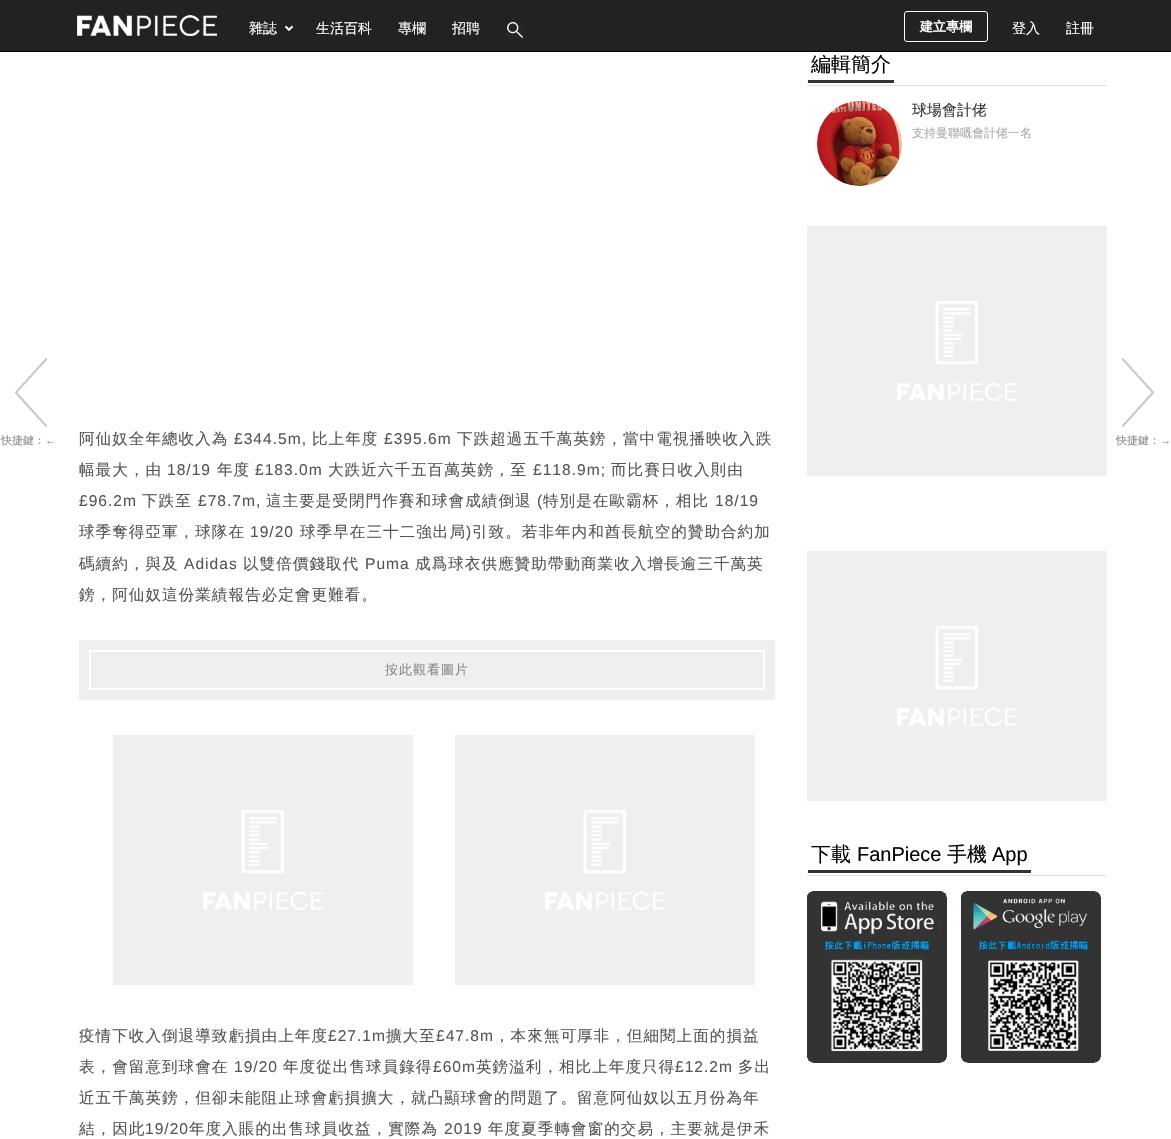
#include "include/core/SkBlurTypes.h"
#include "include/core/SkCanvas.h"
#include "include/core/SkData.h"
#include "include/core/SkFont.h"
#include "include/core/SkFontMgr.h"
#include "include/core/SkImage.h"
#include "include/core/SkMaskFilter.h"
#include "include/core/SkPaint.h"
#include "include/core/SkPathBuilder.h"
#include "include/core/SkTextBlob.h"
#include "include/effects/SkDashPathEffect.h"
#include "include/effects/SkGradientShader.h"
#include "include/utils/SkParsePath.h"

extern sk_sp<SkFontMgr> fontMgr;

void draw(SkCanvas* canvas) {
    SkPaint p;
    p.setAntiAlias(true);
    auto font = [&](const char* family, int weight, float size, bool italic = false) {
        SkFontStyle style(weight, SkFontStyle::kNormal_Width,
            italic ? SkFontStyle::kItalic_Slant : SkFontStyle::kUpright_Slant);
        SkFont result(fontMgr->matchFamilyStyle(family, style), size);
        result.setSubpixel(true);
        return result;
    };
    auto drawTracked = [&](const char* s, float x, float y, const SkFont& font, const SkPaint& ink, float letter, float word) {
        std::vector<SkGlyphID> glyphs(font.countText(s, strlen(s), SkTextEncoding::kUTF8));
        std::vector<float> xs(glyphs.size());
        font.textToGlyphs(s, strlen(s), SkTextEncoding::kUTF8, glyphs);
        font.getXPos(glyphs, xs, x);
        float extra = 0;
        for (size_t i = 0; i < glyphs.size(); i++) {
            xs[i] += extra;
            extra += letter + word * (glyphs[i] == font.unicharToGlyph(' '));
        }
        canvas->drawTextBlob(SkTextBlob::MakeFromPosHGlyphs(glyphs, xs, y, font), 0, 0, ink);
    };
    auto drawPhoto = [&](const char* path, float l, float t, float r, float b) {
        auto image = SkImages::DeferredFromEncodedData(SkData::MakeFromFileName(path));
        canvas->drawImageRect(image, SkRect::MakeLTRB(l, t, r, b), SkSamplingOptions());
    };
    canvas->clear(0xFFFFFFFF);
    p.setColor(0xFF222222);
    canvas->drawRect(SkRect::MakeLTRB(0, 0, 1171, 51), p);
    p.setColor(0xFF000000);
    canvas->drawRect(SkRect::MakeLTRB(0, 51, 1171, 52), p);
    drawPhoto("media/1.png", 77, 15, 217, 36);
    auto font1 = font("WenQuanYi Zen Hei", 500, 14);
    p.setColor(0xFFFFFFFF);
    canvas->drawString("雜誌", 249, 33, font1, p);
    drawPhoto("media/2.png", 284, 25, 294, 32);
    {
        const struct { const char* s; float x, y; } items[] = {
            {"生活百科", 316, 33},
            {"專欄", 398, 33},
            {"招聘", 452, 33},
        };
        for (auto [s, x, y] : items) {
            canvas->drawString(s, x, y, font1, p);
        }
    }
    drawPhoto("media/3.png", 507, 21, 523, 38);
    p.setStyle(SkPaint::kStroke_Style);
    p.setStrokeWidth(1);
    canvas->drawRoundRect(SkRect::MakeLTRB(904.5f, 11.5f, 987.5f, 41.5f), 2.5f, 2.5f, p);
    auto font2 = font("WenQuanYi Zen Hei", 700, 13);
    p.setStyle(SkPaint::kFill_Style);
    canvas->drawString("建立專欄", 920, 31, font2, p);
    canvas->drawString("登入", 1012, 33, font1, p);
    canvas->drawString("註冊", 1066, 33, font1, p);
    drawPhoto("media/4.png", 15, 358, 47, 427);
    auto font3 = font("WenQuanYi Zen Hei", 500, 11);
    p.setColor(0xFF888888);
    canvas->drawString("快捷鍵：", 1, 444, font3, p);
    auto font4 = font("Liberation Sans", 400, 11);
    canvas->drawString("←", 45, 444, font4, p);
    auto font5 = font("WenQuanYi Zen Hei", 500, 15.6f);
    p.setColor(0xFF555555);
    drawTracked("阿仙奴全年總收入為", 79, 444, font5, p, 1, 0);
    auto font6 = font("Liberation Sans", 400, 15.6f);
    drawTracked("£344.5m,", 234, 444, font6, p, 1, 0);
    drawTracked("比上年度", 312, 444, font5, p, 1, 0);
    drawTracked("£395.6m", 384, 444, font6, p, 1, 0);
    drawTracked("下跌超過五千萬英鎊，當中電視播映收入跌", 457, 444, font5, p, 1, 0);
    drawTracked("幅最大，由", 79, 475, font5, p, 1, 0);
    drawTracked("18/19", 167, 475, font6, p, 1, 0);
    drawTracked("年度", 217, 475, font5, p, 1, 0);
    drawTracked("£183.0m", 255, 475, font6, p, 1, 0);
    drawTracked("大跌近六千五百萬英鎊，至", 328, 475, font5, p, 1, 0);
    drawTracked("£118.9m;", 533, 475, font6, p, 1, 0);
    drawTracked("而比賽日收入則由", 611, 475, font5, p, 1, 0);
    drawTracked("£96.2m", 79, 506, font6, p, 1, 0);
    drawTracked("下跌至", 142, 506, font5, p, 1, 0);
    drawTracked("£78.7m,", 198, 506, font6, p, 1, 0);
    drawTracked("這主要是受閉門作賽和球會成績倒退", 266, 506, font5, p, 1, 0);
    drawTracked("(", 537, 506, font6, p, 1, 0);
    drawTracked("特別是在歐霸杯，相比", 543, 506, font5, p, 1, 0);
    drawTracked("18/19", 715, 506, font6, p, 1, 0);
    drawTracked("球季奪得亞軍，球隊在", 79, 537, font5, p, 1, 0);
    drawTracked("19/20", 250, 537, font6, p, 1, 0);
    drawTracked("球季早在三十二強出局", 300, 537, font5, p, 1, 0);
    drawTracked(")", 466, 537, font6, p, 1, 0);
    drawTracked("引致。若非年内和酋長航空的贊助合約加", 472, 537, font5, p, 1, 0);
    drawTracked("碼續約，與及", 79, 569, font5, p, 1, 0);
    drawTracked("Adidas", 184, 569, font6, p, 1, 0);
    drawTracked("以雙倍價錢取代", 243, 569, font5, p, 1, 0);
    drawTracked("Puma", 365, 569, font6, p, 1, 0);
    drawTracked("成爲球衣供應贊助帶動商業收入增長逾三千萬英", 415, 569, font5, p, 1, 0);
    drawTracked("鎊，阿仙奴這份業績報告必定會更難看。", 79, 600, font5, p, 1, 0);
    p.setColor(0xFFEFEFEF);
    canvas->drawRect(SkRect::MakeLTRB(79, 640, 775, 700), p);
    p.setStyle(SkPaint::kStroke_Style);
    p.setStrokeWidth(2);
    p.setColor(0xFFFFFFFF);
    canvas->drawRect(SkRect::MakeLTRB(90, 651, 764, 689), p);
    auto font7 = font("WenQuanYi Zen Hei", 500, 13);
    p.setStyle(SkPaint::kFill_Style);
    p.setColor(0xFF888888);
    drawTracked("按此觀看圖片", 385, 674, font7, p, 1, 0);
    p.setColor(0xFFEFEFEF);
    canvas->drawRect(SkRect::MakeLTRB(113, 735, 413, 985), p);
    drawPhoto("media/5.png", 203, 810, 323, 910);
    canvas->drawRect(SkRect::MakeLTRB(455, 735, 755, 985), p);
    drawPhoto("media/5.png", 545, 810, 665, 910);
    p.setColor(0xFF555555);
    drawTracked("疫情下收入倒退導致虧損由上年度", 79, 1041, font5, p, 1, 0);
    drawTracked("£27.1m", 328, 1041, font6, p, 1, 0);
    drawTracked("擴大至", 386, 1041, font5, p, 1, 0);
    drawTracked("£47.8m", 436, 1041, font6, p, 1, 0);
    drawTracked("，本來無可厚非，但細閱上面的損益", 494, 1041, font5, p, 1, 0);
    drawTracked("表，會留意到球會在", 79, 1072, font5, p, 1, 0);
    drawTracked("19/20", 234, 1072, font6, p, 1, 0);
    drawTracked("年度從出售球員錄得", 283, 1072, font5, p, 1, 0);
    drawTracked("£60m", 433, 1072, font6, p, 1, 0);
    drawTracked("英鎊溢利，相比上年度只得", 476, 1072, font5, p, 1, 0);
    drawTracked("£12.2m", 675, 1072, font6, p, 1, 0);
    {
        const struct { const char* s; float x, y; } items[] = {
            {"多出", 738, 1072},
            {"近五千萬英鎊，但卻未能阻止球會虧損擴大，就凸顯球會的問題了。留意阿仙奴以五月份為年", 79, 1103},
            {"結，因此", 79, 1134},
        };
        for (auto [s, x, y] : items) {
            drawTracked(s, x, y, font5, p, 1, 0);
        }
    }
    drawTracked("19/20", 145, 1134, font6, p, 1, 0);
    drawTracked("年度入賬的出售球員收益，實際為", 189, 1134, font5, p, 1, 0);
    drawTracked("2019", 444, 1134, font6, p, 1, 0);
    drawTracked("年度夏季轉會窗的交易，主要就是伊禾", 488, 1134, font5, p, 1, 0);
    p.setColor(0xFFDDDDDD);
    canvas->drawRect(SkRect::MakeLTRB(807, 85, 1107, 86), p);
    auto font8 = font("WenQuanYi Zen Hei", 500, 20);
    p.setColor(0xFF000000);
    canvas->drawString("編輯簡介", 811, 71, font8, p);
    p.setColor(0xFF333333);
    canvas->drawRect(SkRect::MakeLTRB(808, 80, 894, 83), p);
    drawPhoto("media/6.png", 817, 101, 902, 186);
    auto font9 = font("WenQuanYi Zen Hei", 500, 15);
    canvas->drawString("球場會計佬", 912, 115, font9, p);
    auto font10 = font("WenQuanYi Zen Hei", 500, 12);
    p.setColor(0xFFAAAAAA);
    canvas->drawString("支持曼聯嘅會計佬一名", 912, 137, font10, p);
    p.setColor(0xFFEFEFEF);
    canvas->drawRect(SkRect::MakeLTRB(807, 226, 1107, 476), p);
    drawPhoto("media/5.png", 897, 301, 1017, 401);
    canvas->drawRect(SkRect::MakeLTRB(807, 551, 1107, 801), p);
    drawPhoto("media/5.png", 897, 626, 1017, 726);
    p.setColor(0xFFDDDDDD);
    canvas->drawRect(SkRect::MakeLTRB(807, 875, 1107, 876), p);
    p.setColor(0xFF000000);
    canvas->drawString("下載", 811, 861, font8, p);
    auto font11 = font("Liberation Sans", 400, 20);
    canvas->drawString("FanPiece", 857, 861, font11, p);
    canvas->drawString("手機", 947, 861, font8, p);
    canvas->drawString("App", 992, 861, font11, p);
    p.setColor(0xFF333333);
    canvas->drawRect(SkRect::MakeLTRB(808, 870, 1031, 873), p);
    drawPhoto("media/7.png", 807, 891, 947, 1063);
    drawPhoto("media/8.png", 961, 891, 1101, 1063);
    drawPhoto("media/9.png", 1122, 358, 1154, 427);
    p.setColor(0xFF888888);
    canvas->drawString("快捷鍵：", 1116, 444, font3, p);
    canvas->drawString("→", 1160, 444, font4, p);
}
